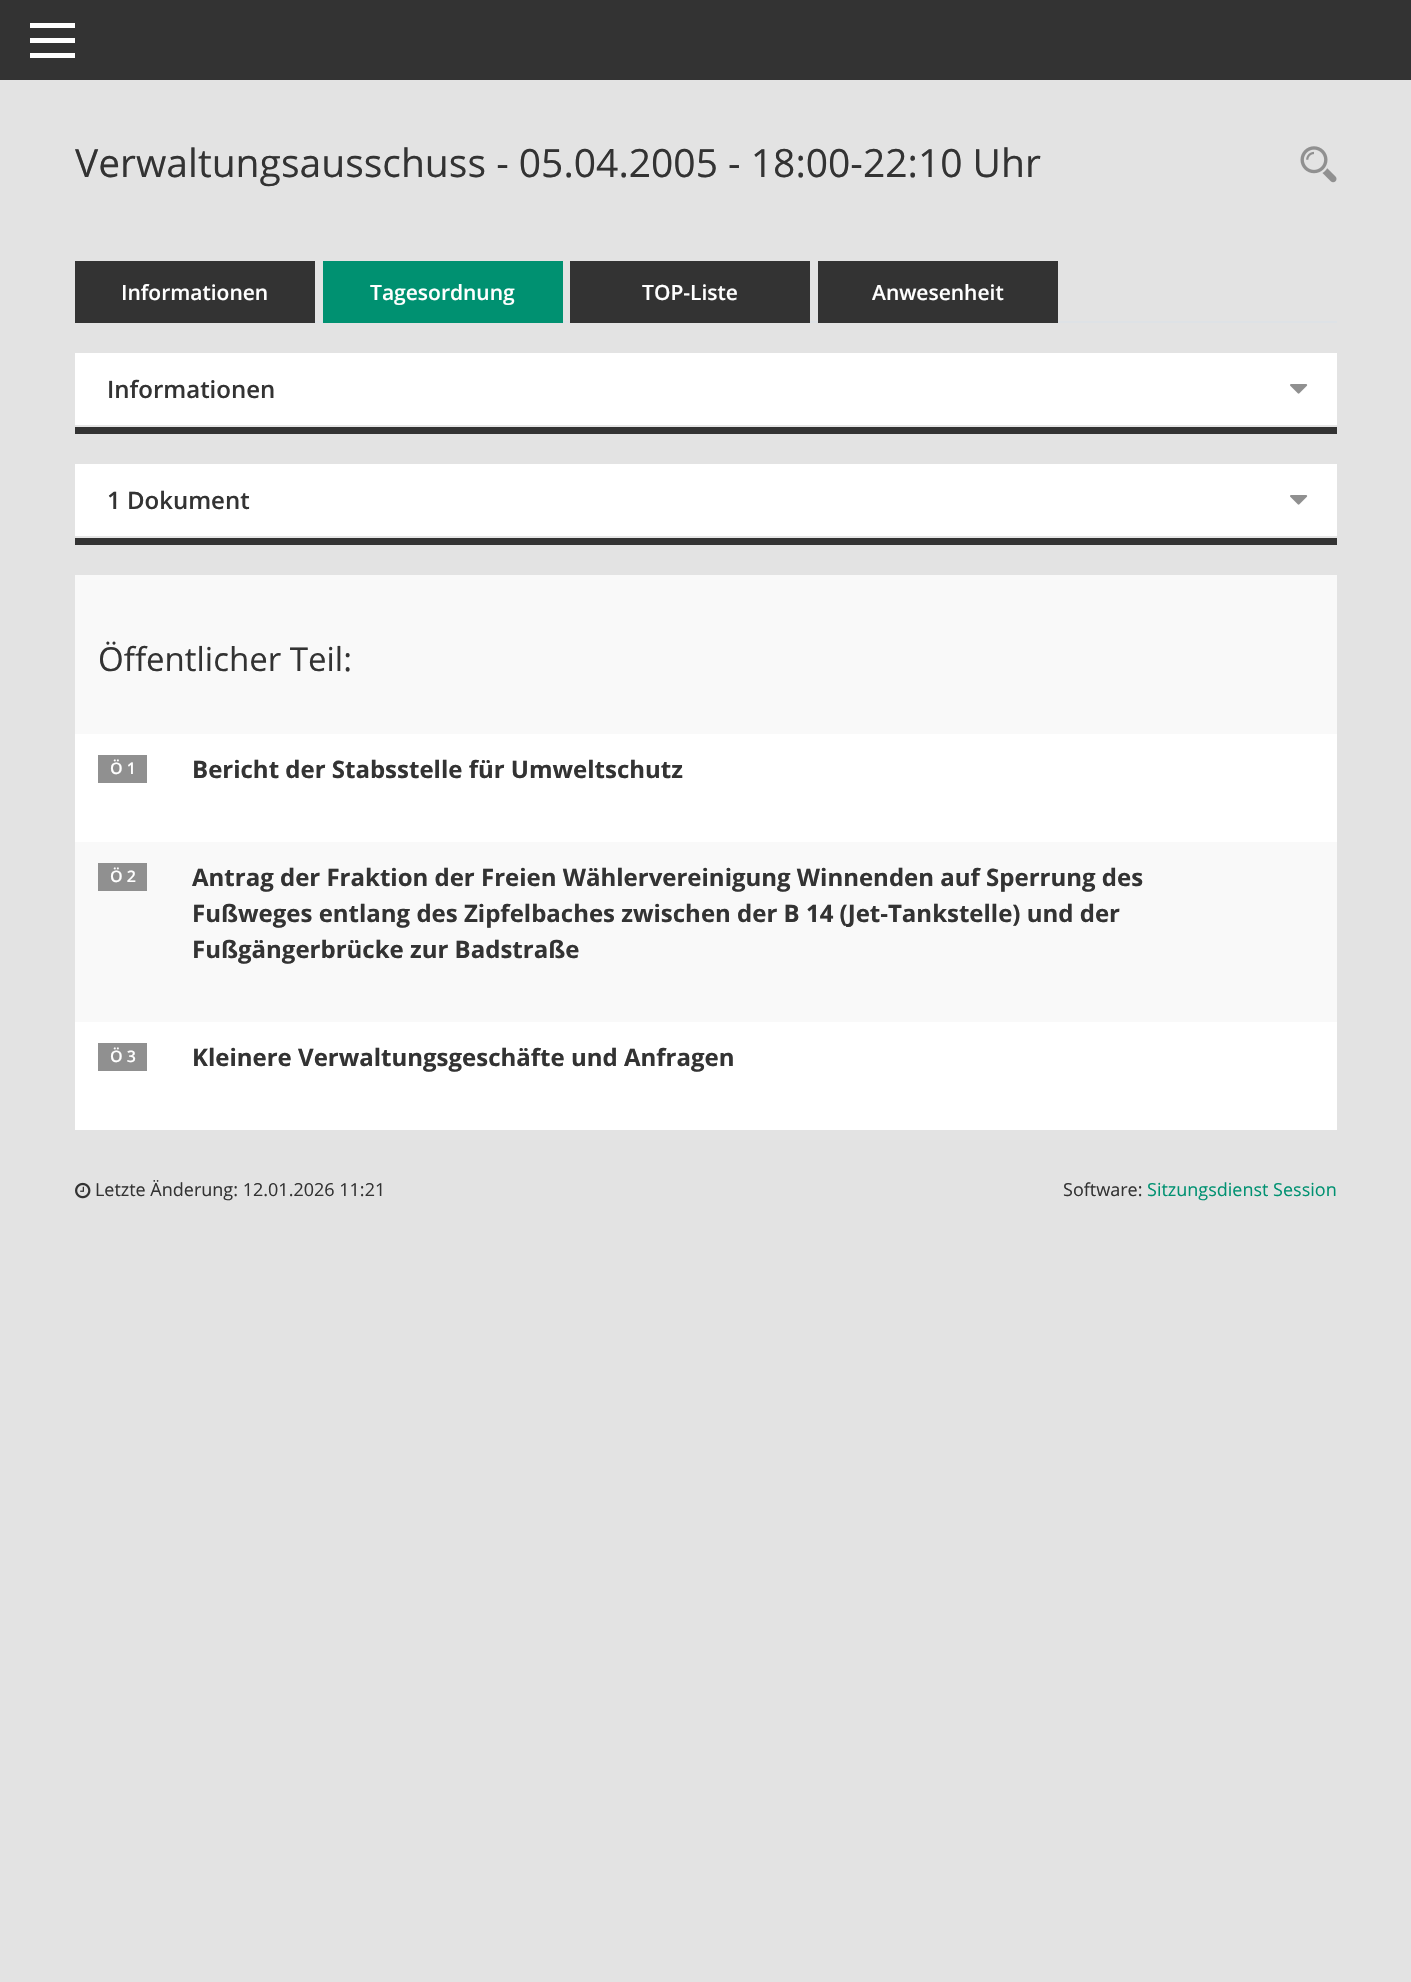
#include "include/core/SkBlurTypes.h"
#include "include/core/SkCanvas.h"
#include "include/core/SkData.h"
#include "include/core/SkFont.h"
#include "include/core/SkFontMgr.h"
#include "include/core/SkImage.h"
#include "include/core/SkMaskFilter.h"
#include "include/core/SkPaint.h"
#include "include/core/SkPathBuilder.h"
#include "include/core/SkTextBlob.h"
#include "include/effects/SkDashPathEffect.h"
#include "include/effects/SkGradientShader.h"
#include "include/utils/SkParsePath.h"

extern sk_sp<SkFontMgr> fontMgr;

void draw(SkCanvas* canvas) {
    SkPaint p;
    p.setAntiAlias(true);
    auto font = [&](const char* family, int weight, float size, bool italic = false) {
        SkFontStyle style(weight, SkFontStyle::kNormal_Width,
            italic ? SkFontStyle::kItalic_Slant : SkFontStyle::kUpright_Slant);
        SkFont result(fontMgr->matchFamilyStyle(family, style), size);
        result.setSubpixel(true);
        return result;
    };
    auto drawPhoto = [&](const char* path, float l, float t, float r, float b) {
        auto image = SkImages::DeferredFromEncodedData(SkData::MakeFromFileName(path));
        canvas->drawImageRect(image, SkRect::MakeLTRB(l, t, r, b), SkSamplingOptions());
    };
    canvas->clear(0xFFE3E3E3);
    {
        const struct { float l, t, r, b; SkColor color; } items[] = {
            {0, 0, 1411, 80, 0xFF333333},
            {30, 23, 75, 28, 0xFFFFFFFF},
            {30, 38, 75, 43, 0xFFFFFFFF},
            {30, 53, 75, 58, 0xFFFFFFFF},
        };
        for (auto [l, t, r, b, color] : items) {
            p.setColor(color);
            canvas->drawRect(SkRect::MakeLTRB(l, t, r, b), p);
        }
    }
    auto font1 = font("Open Sans", 400, 39);
    p.setColor(0xFF333333);
    canvas->drawString("Verwaltungsausschuss - 05.04.2005 - 18:00-22:10 Uhr", 75, 177, font1, p);
    drawPhoto("media/1.png", 1300, 146, 1337, 183);
    p.setColor(0xFFDEE2E6);
    canvas->drawRect(SkRect::MakeLTRB(315, 321, 1337, 323), p);
    p.setColor(0xFF333333);
    canvas->drawRect(SkRect::MakeLTRB(75, 261, 315, 323), p);
    auto font2 = font("Open Sans", 600, 21);
    p.setColor(0xFFFFFFFF);
    canvas->drawString("Informationen", 121, 300, font2, p);
    p.setColor(0xFF009171);
    canvas->drawRect(SkRect::MakeLTRB(323, 261, 563, 323), p);
    p.setColor(0xFFFFFFFF);
    canvas->drawString("Tagesordnung", 370, 300, font2, p);
    p.setColor(0xFF333333);
    canvas->drawRect(SkRect::MakeLTRB(570, 261, 810, 323), p);
    p.setColor(0xFFFFFFFF);
    canvas->drawString("TOP-Liste", 642, 300, font2, p);
    p.setColor(0xFF333333);
    canvas->drawRect(SkRect::MakeLTRB(818, 261, 1058, 323), p);
    p.setColor(0xFFFFFFFF);
    canvas->drawString("Anwesenheit", 872, 300, font2, p);
    {
        const struct { float l, t, r, b; SkColor color; } items[] = {
            {75, 353, 1337, 425, 0xFFFFFFFF},
            {75, 427, 1337, 434, 0xFF333333},
            {75, 425, 1337, 427, 0xFFE6E6E6},
        };
        for (auto [l, t, r, b, color] : items) {
            p.setColor(color);
            canvas->drawRect(SkRect::MakeLTRB(l, t, r, b), p);
        }
    }
    auto font3 = font("Open Sans", 600, 24);
    p.setColor(0xFF333333);
    canvas->drawString("Informationen", 107, 398, font3, p);
    drawPhoto("media/2.png", 1290, 384, 1308, 394);
    {
        const struct { float l, t, r, b; SkColor color; } items[] = {
            {75, 464, 1337, 536, 0xFFFFFFFF},
            {75, 538, 1337, 545, 0xFF333333},
            {75, 536, 1337, 538, 0xFFE6E6E6},
        };
        for (auto [l, t, r, b, color] : items) {
            p.setColor(color);
            canvas->drawRect(SkRect::MakeLTRB(l, t, r, b), p);
        }
    }
    p.setColor(0xFF333333);
    canvas->drawString("1 Dokument", 107, 509, font3, p);
    drawPhoto("media/2.png", 1290, 495, 1308, 505);
    p.setColor(0xFFFFFFFF);
    canvas->drawRect(SkRect::MakeLTRB(75, 734, 1337, 1130), p);
    p.setColor(0xFFF9F9F9);
    canvas->drawRect(SkRect::MakeLTRB(75, 575, 1337, 734), p);
    auto font4 = font("Open Sans", 400, 33);
    p.setColor(0xFF333333);
    canvas->drawString("Öffentlicher Teil:", 98, 671, font4, p);
    p.setColor(0xFF909090);
    canvas->drawRect(SkRect::MakeLTRB(98, 755, 147, 783), p);
    auto font5 = font("Open Sans", 600, 16);
    p.setColor(0xFFFFFFFF);
    canvas->drawString("Ö 1", 110, 774, font5, p);
    auto font6 = font("Open Sans", 700, 24);
    p.setColor(0xFF333333);
    canvas->drawString("Bericht der Stabsstelle für Umweltschutz", 192, 778, font6, p);
    p.setColor(0xFFF9F9F9);
    canvas->drawRect(SkRect::MakeLTRB(75, 842, 1337, 1022), p);
    p.setColor(0xFF909090);
    canvas->drawRect(SkRect::MakeLTRB(98, 863, 147, 891), p);
    p.setColor(0xFFFFFFFF);
    canvas->drawString("Ö 2", 110, 882, font5, p);
    p.setColor(0xFF333333);
    {
        const struct { const char* s; float x, y; } items[] = {
            {"Antrag der Fraktion der Freien Wählervereinigung Winnenden auf Sperrung des", 192, 886},
            {"Fußweges entlang des Zipfelbaches zwischen der B 14 (Jet-Tankstelle) und der", 192, 922},
            {"Fußgängerbrücke zur Badstraße", 192, 958},
        };
        for (auto [s, x, y] : items) {
            canvas->drawString(s, x, y, font6, p);
        }
    }
    p.setColor(0xFF909090);
    canvas->drawRect(SkRect::MakeLTRB(98, 1043, 147, 1071), p);
    p.setColor(0xFFFFFFFF);
    canvas->drawString("Ö 3", 110, 1062, font5, p);
    p.setColor(0xFF333333);
    canvas->drawString("Kleinere Verwaltungsgeschäfte und Anfragen", 192, 1066, font6, p);
    drawPhoto("media/3.png", 75, 1182, 91, 1199);
    auto font7 = font("Open Sans", 400, 18);
    canvas->drawString("Letzte Änderung: 12.01.2026 11:21", 95, 1196, font7, p);
    canvas->drawString("Software:", 1063, 1196, font7, p);
    p.setColor(0xFF009171);
    canvas->drawString("Sitzungsdienst Session", 1147, 1196, font7, p);
}
